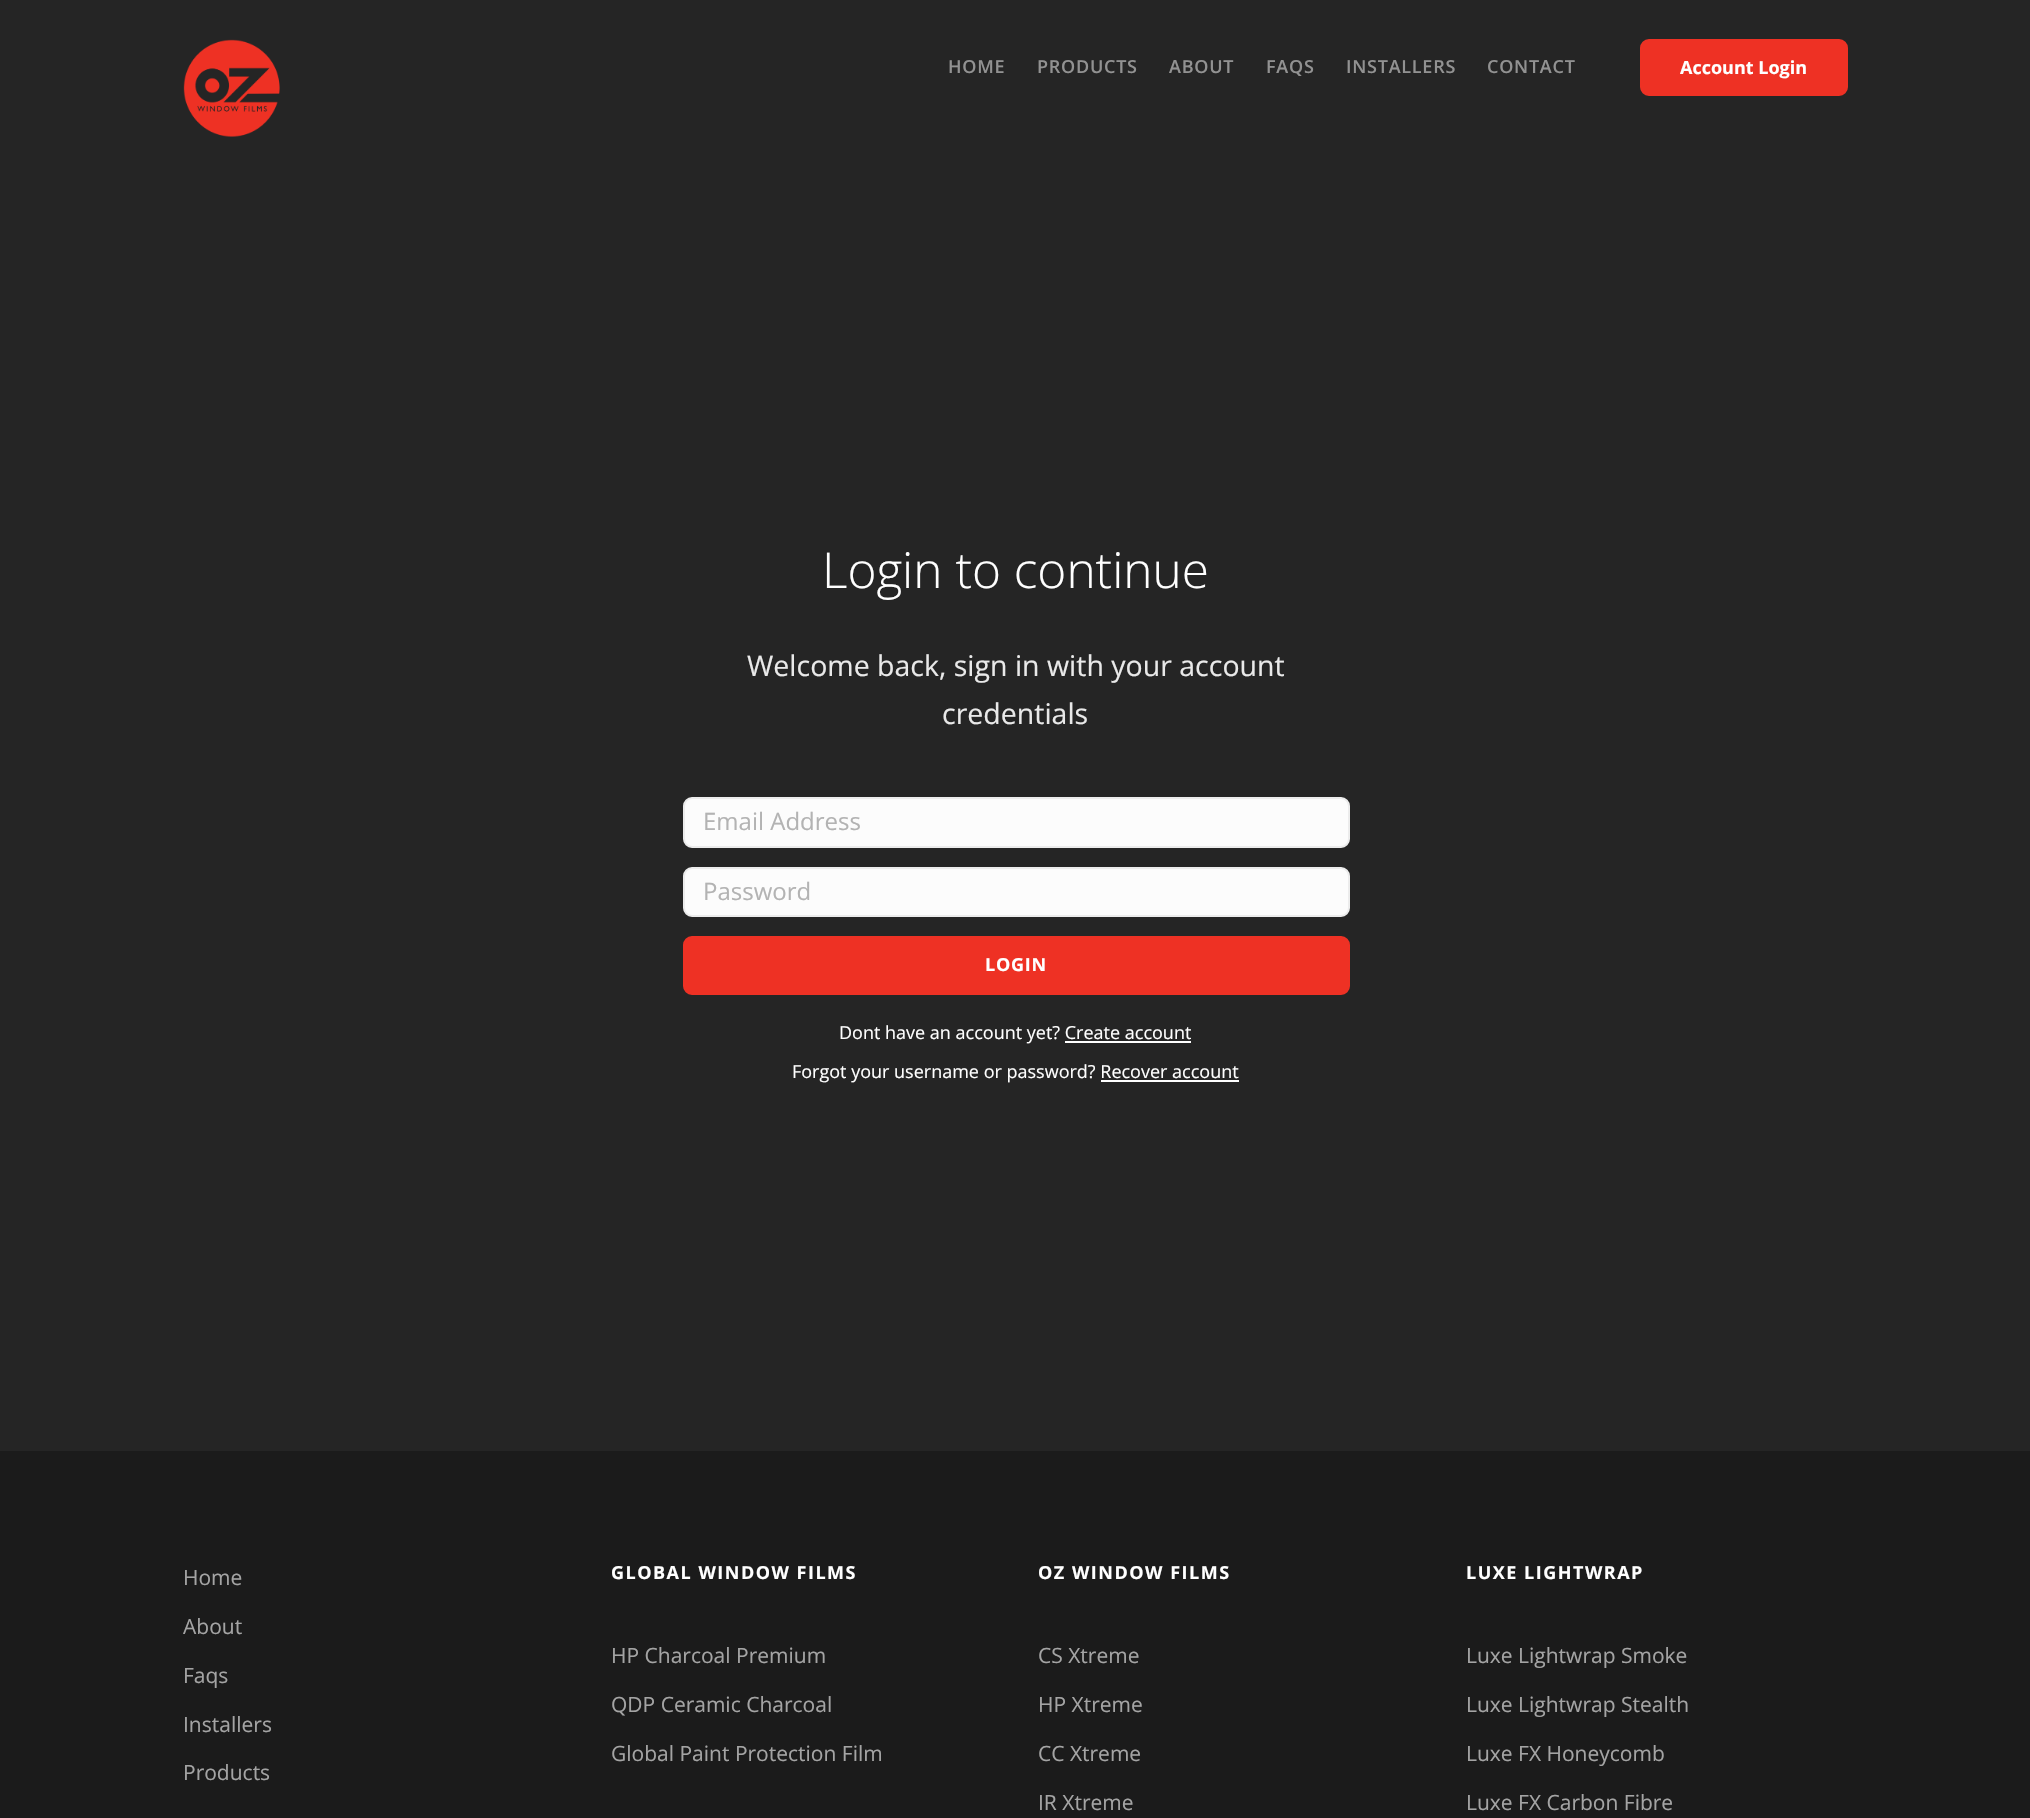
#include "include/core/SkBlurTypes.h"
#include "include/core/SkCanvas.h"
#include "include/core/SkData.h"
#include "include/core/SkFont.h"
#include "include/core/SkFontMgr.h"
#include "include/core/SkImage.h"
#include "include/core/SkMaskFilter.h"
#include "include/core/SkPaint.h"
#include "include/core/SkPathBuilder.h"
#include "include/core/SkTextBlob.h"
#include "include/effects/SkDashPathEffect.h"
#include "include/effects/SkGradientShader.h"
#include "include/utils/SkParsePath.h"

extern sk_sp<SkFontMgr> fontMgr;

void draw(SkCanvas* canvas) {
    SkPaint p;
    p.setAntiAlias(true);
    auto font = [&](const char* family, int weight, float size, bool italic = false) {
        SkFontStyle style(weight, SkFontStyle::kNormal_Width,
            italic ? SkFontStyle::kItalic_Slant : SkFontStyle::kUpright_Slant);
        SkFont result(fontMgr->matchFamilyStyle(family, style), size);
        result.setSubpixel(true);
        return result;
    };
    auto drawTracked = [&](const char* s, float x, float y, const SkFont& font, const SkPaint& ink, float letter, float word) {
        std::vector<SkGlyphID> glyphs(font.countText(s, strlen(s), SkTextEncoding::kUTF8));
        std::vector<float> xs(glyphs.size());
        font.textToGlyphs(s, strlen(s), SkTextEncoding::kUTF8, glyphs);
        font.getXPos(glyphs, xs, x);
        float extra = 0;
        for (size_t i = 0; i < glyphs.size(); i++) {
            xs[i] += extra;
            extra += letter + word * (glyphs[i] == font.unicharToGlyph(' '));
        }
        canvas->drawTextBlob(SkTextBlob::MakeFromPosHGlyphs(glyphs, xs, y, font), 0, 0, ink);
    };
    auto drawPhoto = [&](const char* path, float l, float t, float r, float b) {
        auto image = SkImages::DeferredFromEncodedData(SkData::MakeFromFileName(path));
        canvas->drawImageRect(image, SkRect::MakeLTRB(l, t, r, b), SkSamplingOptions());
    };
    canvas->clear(0xFF252525);
    drawPhoto("media/1.png", 183, 39, 280, 137);
    auto font1 = font("Open Sans", 600, 18);
    p.setColor(0xFF929292);
    {
        const struct { const char* s; float x, y; } items[] = {
            {"HOME", 948, 73},
            {"PRODUCTS", 1037, 73},
            {"ABOUT", 1169, 73},
            {"FAQS", 1266, 73},
            {"INSTALLERS", 1346, 73},
            {"CONTACT", 1487, 73},
        };
        for (auto [s, x, y] : items) {
            drawTracked(s, x, y, font1, p, 0.75f, 0);
        }
    }
    p.setColor(0xFFEE3124);
    canvas->drawRoundRect(SkRect::MakeLTRB(1641, 40, 1847, 95), 8, 8, p);
    p.setStyle(SkPaint::kStroke_Style);
    p.setStrokeWidth(2);
    canvas->drawRoundRect(SkRect::MakeLTRB(1641, 40, 1847, 95), 8, 8, p);
    auto font2 = font("Open Sans", 700, 18);
    p.setStyle(SkPaint::kFill_Style);
    p.setColor(0xFFFFFFFF);
    canvas->drawString("Account Login", 1680, 74, font2, p);
    auto font3 = font("Open Sans", 300, 49.5f);
    canvas->drawString("Login to continue", 822, 588, font3, p);
    auto font4 = font("Open Sans", 400, 28.5f);
    p.setColor(0xFFE9E9E9);
    canvas->drawString("Welcome back, sign in with your account", 747, 676, font4, p);
    canvas->drawString("credentials", 942, 724, font4, p);
    p.setColor(0xFFFCFCFC);
    canvas->drawRoundRect(SkRect::MakeLTRB(684, 798, 1349, 847), 8, 8, p);
    p.setStyle(SkPaint::kStroke_Style);
    p.setColor(0xFFECECEC);
    canvas->drawRoundRect(SkRect::MakeLTRB(684, 798, 1349, 847), 8, 8, p);
    auto font5 = font("Open Sans", 400, 24);
    p.setStyle(SkPaint::kFill_Style);
    p.setColor(0xFFB3B3B3);
    canvas->drawString("Email Address", 703, 830, font5, p);
    p.setColor(0xFFFCFCFC);
    canvas->drawRoundRect(SkRect::MakeLTRB(684, 868, 1349, 916), 8, 8, p);
    p.setStyle(SkPaint::kStroke_Style);
    p.setColor(0xFFECECEC);
    canvas->drawRoundRect(SkRect::MakeLTRB(684, 868, 1349, 916), 8, 8, p);
    p.setStyle(SkPaint::kFill_Style);
    p.setColor(0xFFB3B3B3);
    canvas->drawString("Password", 703, 900, font5, p);
    p.setColor(0xFFEE3124);
    canvas->drawRoundRect(SkRect::MakeLTRB(684, 937, 1349, 994), 8, 8, p);
    p.setStyle(SkPaint::kStroke_Style);
    canvas->drawRoundRect(SkRect::MakeLTRB(684, 937, 1349, 994), 8, 8, p);
    p.setStyle(SkPaint::kFill_Style);
    p.setColor(0xFFFFFFFF);
    drawTracked("LOGIN", 985, 971, font2, p, 0.75f, 0);
    auto font6 = font("Open Sans", 400, 18);
    canvas->drawString("Dont have an account yet? Create account", 839, 1039, font6, p);
    canvas->drawRect(SkRect::MakeLTRB(1065, 1041, 1191, 1043), p);
    canvas->drawString("Forgot your username or password? Recover account", 792, 1078, font6, p);
    canvas->drawRect(SkRect::MakeLTRB(1101, 1080, 1239, 1082), p);
    p.setColor(0xFF1B1B1B);
    canvas->drawRect(SkRect::MakeLTRB(0, 1451, 2030, 1818), p);
    auto font7 = font("Open Sans", 400, 21);
    p.setColor(0xFFA4A4A4);
    {
        const struct { const char* s; float x, y; } items[] = {
            {"Home", 183, 1585},
            {"About", 183, 1634},
            {"Faqs", 183, 1683},
            {"Installers", 183, 1732},
            {"Products", 183, 1780},
        };
        for (auto [s, x, y] : items) {
            canvas->drawString(s, x, y, font7, p);
        }
    }
    p.setColor(0xFFFFFFFF);
    drawTracked("GLOBAL WINDOW FILMS", 611, 1579, font2, p, 1.5f, 0);
    p.setColor(0xFFA4A4A4);
    {
        const struct { const char* s; float x, y; } items[] = {
            {"HP Charcoal Premium", 611, 1663},
            {"QDP Ceramic Charcoal", 611, 1712},
            {"Global Paint Protection Film", 611, 1761},
        };
        for (auto [s, x, y] : items) {
            canvas->drawString(s, x, y, font7, p);
        }
    }
    p.setColor(0xFFFFFFFF);
    drawTracked("OZ WINDOW FILMS", 1038, 1579, font2, p, 1.5f, 0);
    p.setColor(0xFFA4A4A4);
    {
        const struct { const char* s; float x, y; } items[] = {
            {"CS Xtreme", 1038, 1663},
            {"HP Xtreme", 1038, 1712},
            {"CC Xtreme", 1038, 1761},
            {"IR Xtreme", 1038, 1810},
        };
        for (auto [s, x, y] : items) {
            canvas->drawString(s, x, y, font7, p);
        }
    }
    p.setColor(0xFFFFFFFF);
    drawTracked("LUXE LIGHTWRAP", 1466, 1579, font2, p, 1.5f, 0);
    p.setColor(0xFFA4A4A4);
    {
        const struct { const char* s; float x, y; } items[] = {
            {"Luxe Lightwrap Smoke", 1466, 1663},
            {"Luxe Lightwrap Stealth", 1466, 1712},
            {"Luxe FX Honeycomb", 1466, 1761},
            {"Luxe FX Carbon Fibre", 1466, 1810},
        };
        for (auto [s, x, y] : items) {
            canvas->drawString(s, x, y, font7, p);
        }
    }
}
